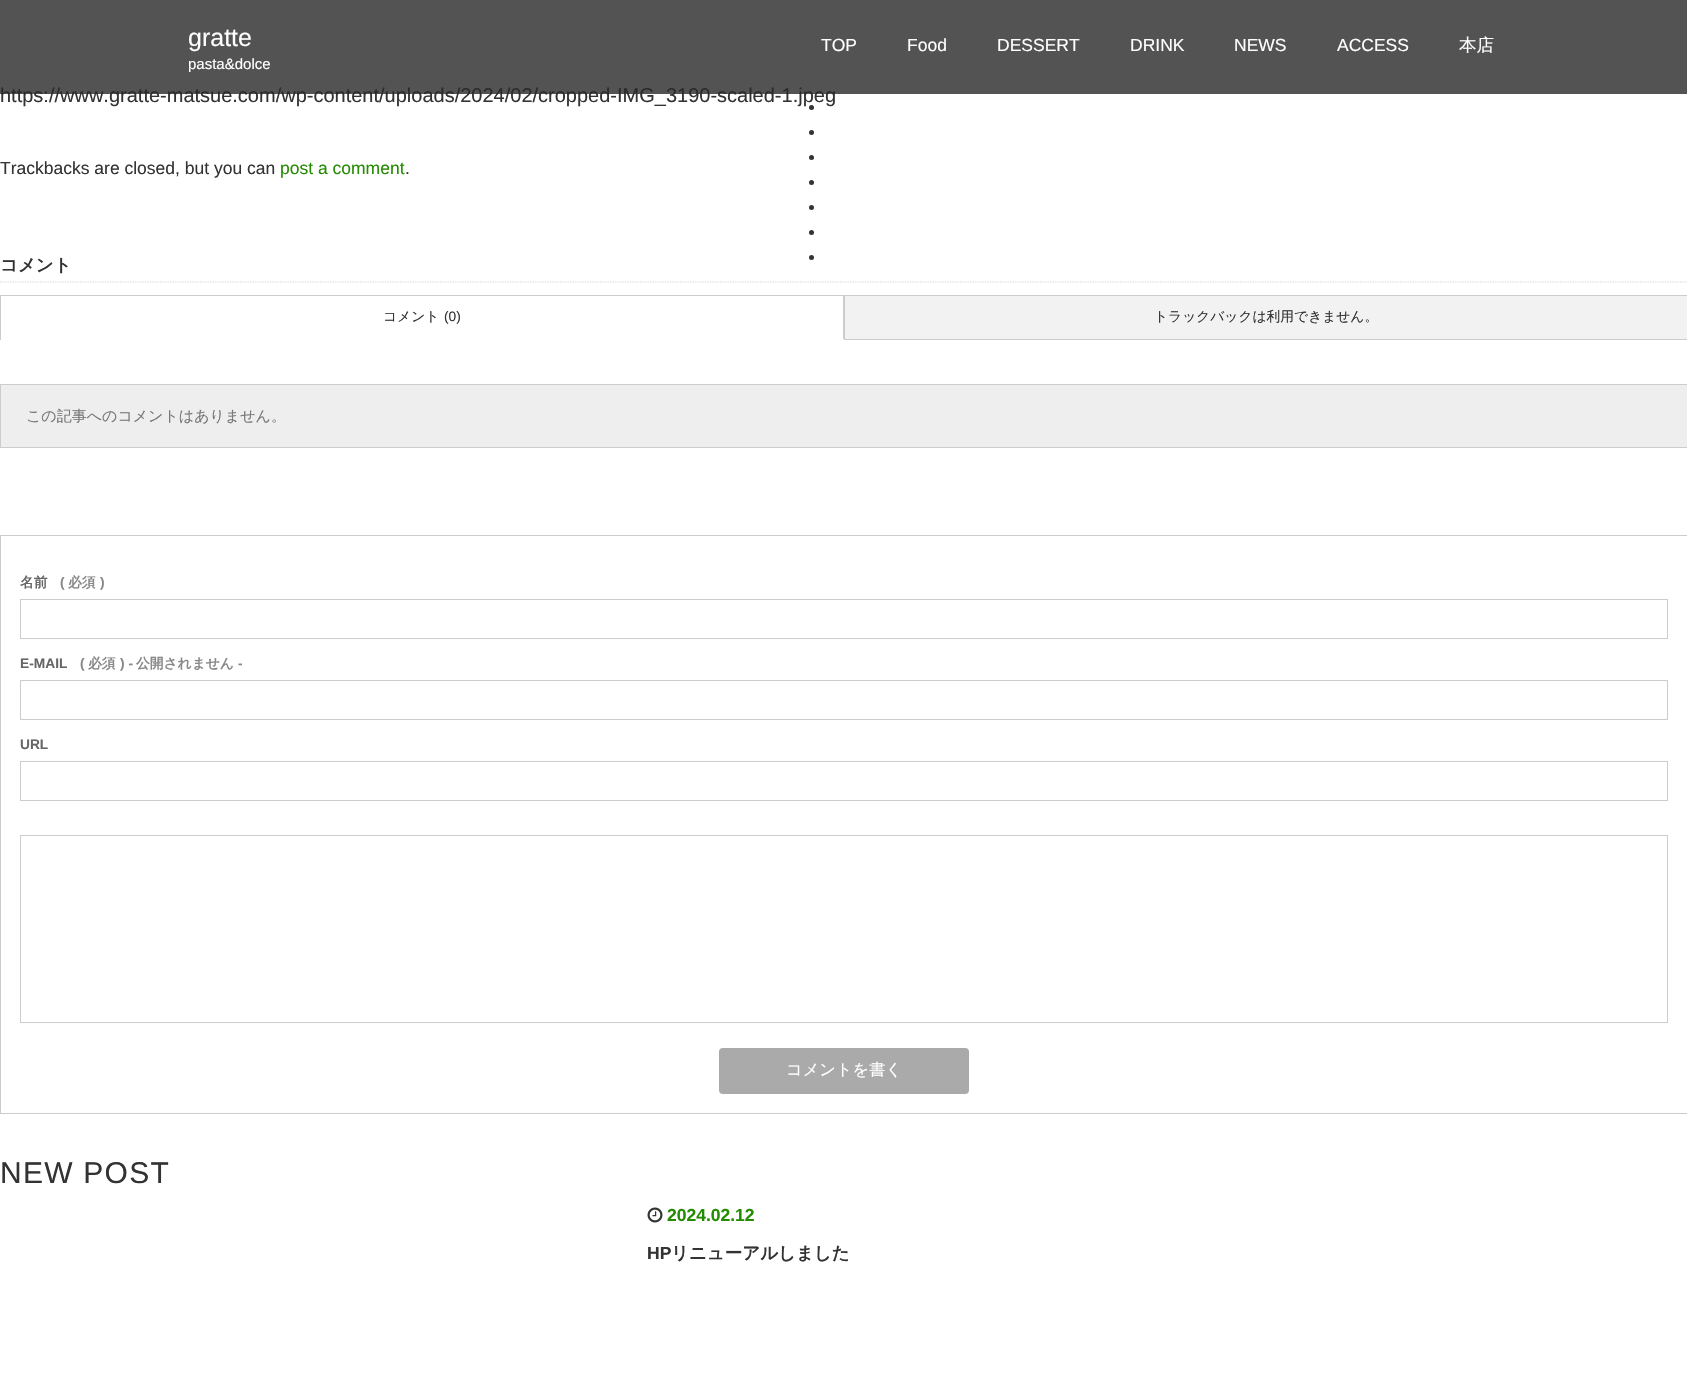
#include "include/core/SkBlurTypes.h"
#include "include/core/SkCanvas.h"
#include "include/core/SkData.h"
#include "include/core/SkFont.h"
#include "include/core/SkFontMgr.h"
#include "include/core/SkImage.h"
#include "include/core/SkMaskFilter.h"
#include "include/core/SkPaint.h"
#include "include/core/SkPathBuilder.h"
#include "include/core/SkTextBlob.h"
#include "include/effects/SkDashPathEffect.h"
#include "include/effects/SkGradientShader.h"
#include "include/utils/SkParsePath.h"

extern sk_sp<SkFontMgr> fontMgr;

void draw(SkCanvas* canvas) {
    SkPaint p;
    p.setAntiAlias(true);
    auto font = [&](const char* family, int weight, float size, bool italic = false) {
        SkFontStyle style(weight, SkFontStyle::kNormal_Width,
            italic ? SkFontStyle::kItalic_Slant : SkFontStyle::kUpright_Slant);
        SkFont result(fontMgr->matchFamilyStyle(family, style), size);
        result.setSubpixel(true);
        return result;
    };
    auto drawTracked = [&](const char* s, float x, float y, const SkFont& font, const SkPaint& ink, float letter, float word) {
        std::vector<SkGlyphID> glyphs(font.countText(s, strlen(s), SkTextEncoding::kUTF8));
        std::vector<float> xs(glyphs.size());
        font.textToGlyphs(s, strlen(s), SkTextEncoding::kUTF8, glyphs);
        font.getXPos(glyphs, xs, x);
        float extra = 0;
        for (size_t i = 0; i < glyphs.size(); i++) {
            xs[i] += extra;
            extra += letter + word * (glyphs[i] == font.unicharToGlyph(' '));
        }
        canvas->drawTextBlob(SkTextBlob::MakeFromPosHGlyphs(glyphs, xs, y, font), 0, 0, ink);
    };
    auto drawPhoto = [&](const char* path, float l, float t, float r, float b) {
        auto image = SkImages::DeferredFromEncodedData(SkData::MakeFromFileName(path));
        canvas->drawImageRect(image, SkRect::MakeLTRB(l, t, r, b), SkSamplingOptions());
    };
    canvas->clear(0xFFFFFFFF);
    auto font1 = font("Liberation Sans", 400, 20);
    p.setColor(0xFF333333);
    canvas->drawString("https://www.gratte-matsue.com/wp-content/uploads/2024/02/cropped-IMG_3190-scaled-1.jpeg", 0, 102, font1, p);
    p.setColor(0xCC282828);
    canvas->drawRect(SkRect::MakeLTRB(0, 0, 1687, 94), p);
    auto font2 = font("Liberation Sans", 400, 25);
    p.setColor(0xFFFFFFFF);
    canvas->drawString("gratte", 188, 46, font2, p);
    auto font3 = font("Liberation Sans", 400, 15);
    canvas->drawString("pasta&dolce", 188, 69, font3, p);
    auto font4 = font("Liberation Sans", 400, 17.5f);
    {
        const struct { const char* s; float x, y; } items[] = {
            {"TOP", 821, 51},
            {"Food", 907, 51},
            {"DESSERT", 997, 51},
            {"DRINK", 1130, 51},
            {"NEWS", 1234, 51},
            {"ACCESS", 1337, 51},
        };
        for (auto [s, x, y] : items) {
            canvas->drawString(s, x, y, font4, p);
        }
    }
    auto font5 = font("WenQuanYi Zen Hei", 500, 17.5f);
    canvas->drawString("本店", 1459, 51, font5, p);
    p.setColor(0xFF333333);
    canvas->drawCircle(811.5f, 107.5f, 2.5f, p);
    canvas->drawCircle(811.5f, 132.5f, 2.5f, p);
    canvas->drawCircle(811.5f, 157.5f, 2.5f, p);
    canvas->drawCircle(811.5f, 182.5f, 2.5f, p);
    canvas->drawCircle(811.5f, 207.5f, 2.5f, p);
    canvas->drawCircle(811.5f, 232.5f, 2.5f, p);
    canvas->drawCircle(811.5f, 257.5f, 2.5f, p);
    canvas->drawString("Trackbacks are closed, but you can", 0, 174, font4, p);
    p.setColor(0xFF238C00);
    canvas->drawString("post a comment", 280, 174, font4, p);
    p.setColor(0xFF333333);
    canvas->drawString(".", 405, 174, font4, p);
    p.setStyle(SkPaint::kStroke_Style);
    p.setStrokeWidth(1.2f);
    p.setColor(0xFFD3D3D3);
    p.setPathEffect(SkDashPathEffect::Make({{1.25f, 1.25f}}, 0));
    canvas->drawPath(SkPathBuilder().moveTo(0, 282).lineTo(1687.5f, 282).detach(), p);
    p.setPathEffect(nullptr);
    auto font6 = font("WenQuanYi Zen Hei", 700, 17.5f);
    p.setStyle(SkPaint::kFill_Style);
    p.setColor(0xFF333333);
    canvas->drawString("コメント", 0, 271, font6, p);
    {
        const struct { float l, t, r, b; SkColor color; } items[] = {
            {0, 295, 844, 296, 0xFFCCCCCC},
            {843, 295, 844, 340, 0xFFCCCCCC},
            {843, 339, 844, 340, 0xFFFFFFFF},
            {0, 295, 1, 340, 0xFFCCCCCC},
        };
        for (auto [l, t, r, b, color] : items) {
            p.setColor(color);
            canvas->drawRect(SkRect::MakeLTRB(l, t, r, b), p);
        }
    }
    auto font7 = font("WenQuanYi Zen Hei", 500, 13.75f);
    p.setColor(0xFF333333);
    canvas->drawString("コメント", 383, 321, font7, p);
    auto font8 = font("Liberation Sans", 400, 13.75f);
    canvas->drawString("(0)", 444, 321, font8, p);
    p.setColor(0xFFF2F2F2);
    canvas->drawRect(SkRect::MakeLTRB(844.5f, 295.5f, 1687.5f, 339.5f), p);
    p.setStyle(SkPaint::kStroke_Style);
    p.setStrokeWidth(1);
    p.setColor(0xFFCCCCCC);
    canvas->drawRect(SkRect::MakeLTRB(844.5f, 295.5f, 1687.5f, 339.5f), p);
    p.setStyle(SkPaint::kFill_Style);
    p.setColor(0xFF333333);
    canvas->drawString("トラックバックは利用できません。", 1154, 321, font7, p);
    p.setColor(0xFFEEEEEE);
    canvas->drawRect(SkRect::MakeLTRB(0.5f, 384.5f, 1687.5f, 447.5f), p);
    p.setStyle(SkPaint::kStroke_Style);
    p.setColor(0xFFCCCCCC);
    canvas->drawRect(SkRect::MakeLTRB(0.5f, 384.5f, 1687.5f, 447.5f), p);
    auto font9 = font("WenQuanYi Zen Hei", 500, 15);
    p.setStyle(SkPaint::kFill_Style);
    p.setColor(0xFF777777);
    canvas->drawString("この記事へのコメントはありません。", 26, 421, font9, p);
    p.setStyle(SkPaint::kStroke_Style);
    p.setColor(0xFFCCCCCC);
    canvas->drawRect(SkRect::MakeLTRB(0.5f, 535.5f, 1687.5f, 1113.5f), p);
    auto font10 = font("WenQuanYi Zen Hei", 700, 13.75f);
    p.setStyle(SkPaint::kFill_Style);
    p.setColor(0xFF666666);
    canvas->drawString("名前", 20, 587, font10, p);
    auto font11 = font("Liberation Sans", 700, 13.75f);
    p.setColor(0xFF888888);
    canvas->drawString("(", 60, 587, font11, p);
    canvas->drawString("必須", 68, 587, font10, p);
    canvas->drawString(")", 100, 587, font11, p);
    p.setStyle(SkPaint::kStroke_Style);
    p.setColor(0xFFCCCCCC);
    canvas->drawRect(SkRect::MakeLTRB(20.5f, 599.5f, 1667.5f, 638.5f), p);
    p.setStyle(SkPaint::kFill_Style);
    p.setColor(0xFF666666);
    canvas->drawString("E-MAIL", 20, 668, font11, p);
    p.setColor(0xFF888888);
    canvas->drawString("(", 80, 668, font11, p);
    canvas->drawString("必須", 88, 668, font10, p);
    canvas->drawString(") -", 120, 668, font11, p);
    canvas->drawString("公開されません", 136, 668, font10, p);
    canvas->drawString("-", 238, 668, font11, p);
    p.setStyle(SkPaint::kStroke_Style);
    p.setColor(0xFFCCCCCC);
    canvas->drawRect(SkRect::MakeLTRB(20.5f, 680.5f, 1667.5f, 719.5f), p);
    p.setStyle(SkPaint::kFill_Style);
    p.setColor(0xFF666666);
    canvas->drawString("URL", 20, 749, font11, p);
    p.setStyle(SkPaint::kStroke_Style);
    p.setColor(0xFFCCCCCC);
    canvas->drawRect(SkRect::MakeLTRB(20.5f, 761.5f, 1667.5f, 800.5f), p);
    canvas->drawRect(SkRect::MakeLTRB(20.5f, 835.5f, 1667.5f, 1022.5f), p);
    p.setStyle(SkPaint::kFill_Style);
    p.setColor(0xFFAAAAAA);
    canvas->drawRoundRect(SkRect::MakeLTRB(719, 1048, 969, 1094), 4, 4, p);
    auto font12 = font("WenQuanYi Zen Hei", 500, 16.25f);
    p.setColor(0xFFFFFFFF);
    canvas->drawString("コメントを書く", 786, 1075, font12, p);
    auto font13 = font("Liberation Sans", 400, 30);
    p.setColor(0xFF333333);
    drawTracked("NEW POST", 0, 1183, font13, p, 1.25f, 0);
    drawPhoto("media/1.png", 647, 1207, 663, 1223);
    auto font14 = font("Liberation Sans", 700, 17.5f);
    p.setColor(0xFF238C00);
    canvas->drawString("2024.02.12", 667, 1221, font14, p);
    p.setColor(0xFF333333);
    canvas->drawString("HP", 647, 1259, font14, p);
    canvas->drawString("リニューアルしました", 671, 1259, font6, p);
}
